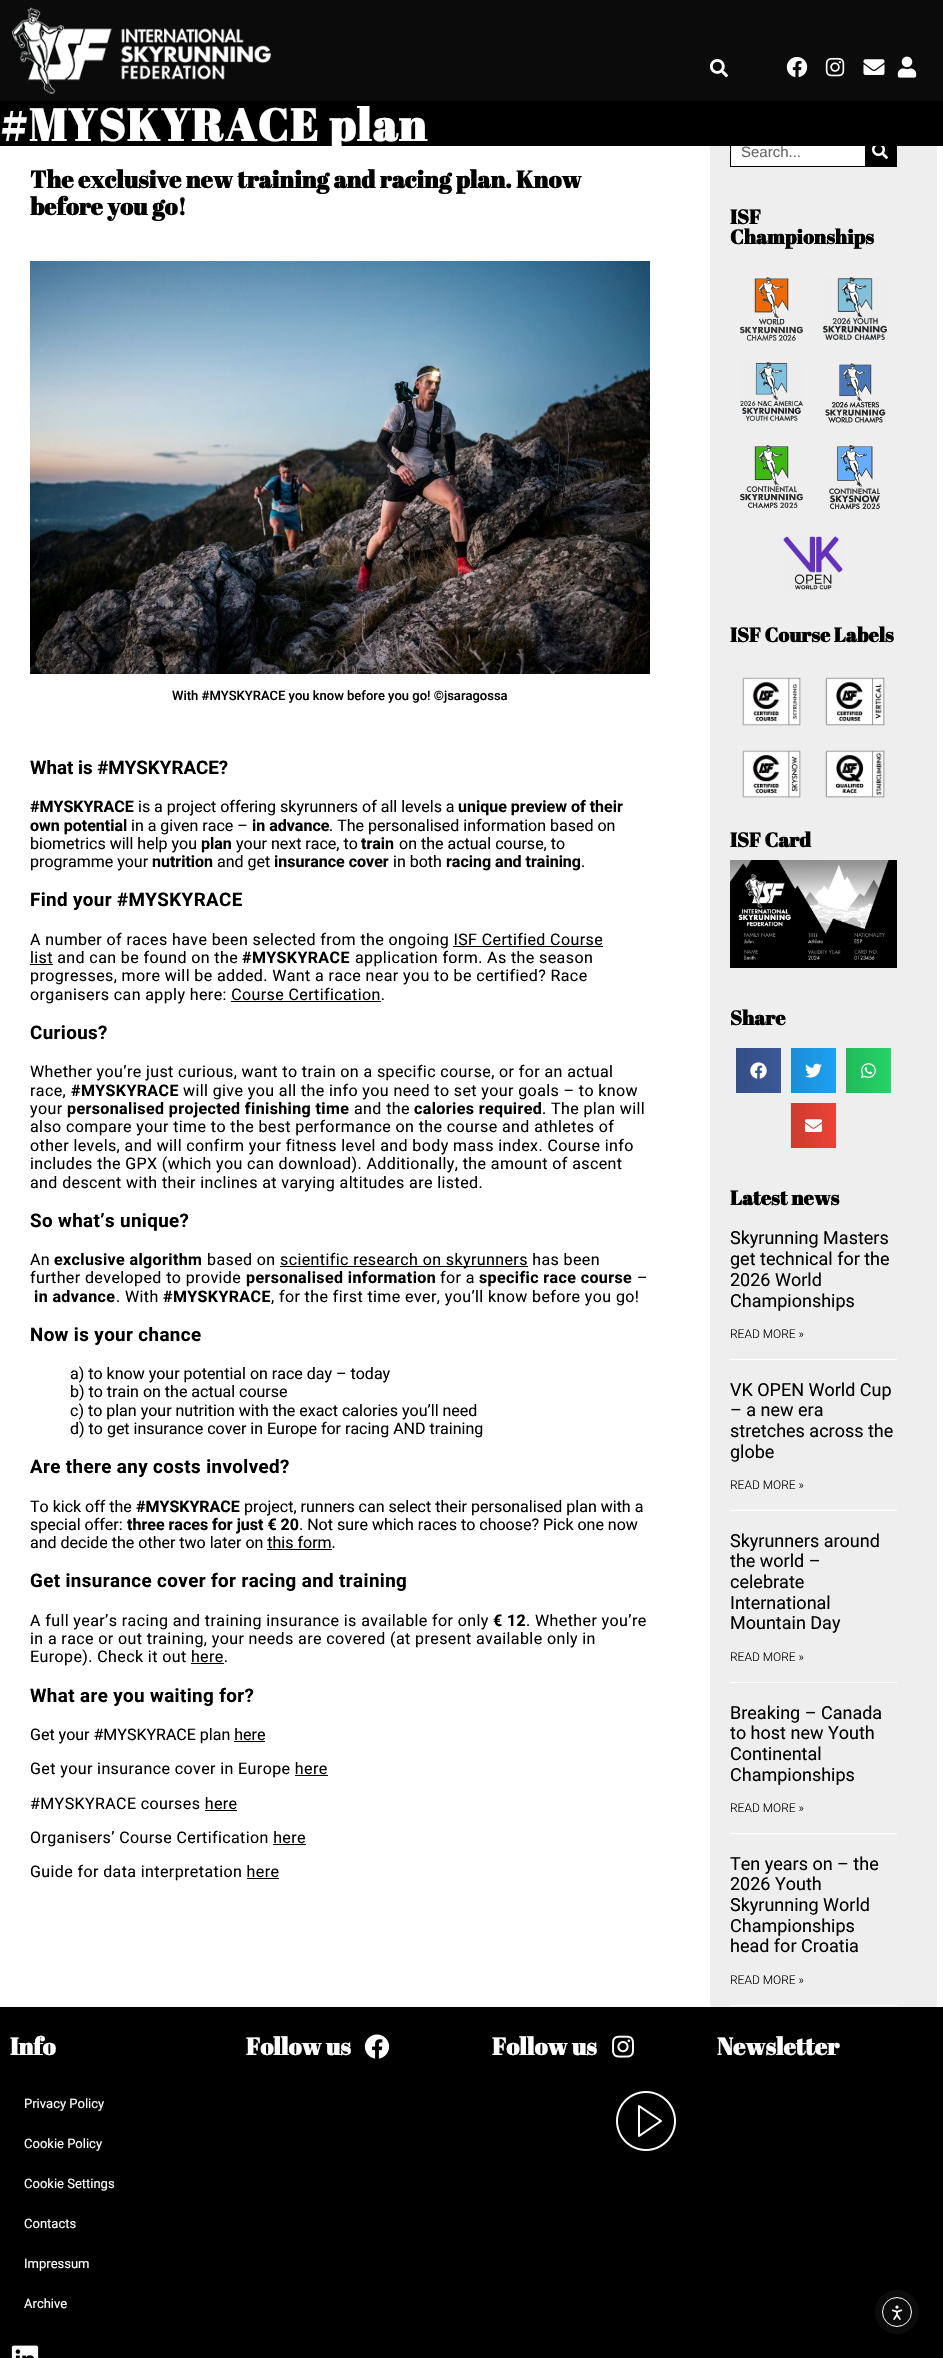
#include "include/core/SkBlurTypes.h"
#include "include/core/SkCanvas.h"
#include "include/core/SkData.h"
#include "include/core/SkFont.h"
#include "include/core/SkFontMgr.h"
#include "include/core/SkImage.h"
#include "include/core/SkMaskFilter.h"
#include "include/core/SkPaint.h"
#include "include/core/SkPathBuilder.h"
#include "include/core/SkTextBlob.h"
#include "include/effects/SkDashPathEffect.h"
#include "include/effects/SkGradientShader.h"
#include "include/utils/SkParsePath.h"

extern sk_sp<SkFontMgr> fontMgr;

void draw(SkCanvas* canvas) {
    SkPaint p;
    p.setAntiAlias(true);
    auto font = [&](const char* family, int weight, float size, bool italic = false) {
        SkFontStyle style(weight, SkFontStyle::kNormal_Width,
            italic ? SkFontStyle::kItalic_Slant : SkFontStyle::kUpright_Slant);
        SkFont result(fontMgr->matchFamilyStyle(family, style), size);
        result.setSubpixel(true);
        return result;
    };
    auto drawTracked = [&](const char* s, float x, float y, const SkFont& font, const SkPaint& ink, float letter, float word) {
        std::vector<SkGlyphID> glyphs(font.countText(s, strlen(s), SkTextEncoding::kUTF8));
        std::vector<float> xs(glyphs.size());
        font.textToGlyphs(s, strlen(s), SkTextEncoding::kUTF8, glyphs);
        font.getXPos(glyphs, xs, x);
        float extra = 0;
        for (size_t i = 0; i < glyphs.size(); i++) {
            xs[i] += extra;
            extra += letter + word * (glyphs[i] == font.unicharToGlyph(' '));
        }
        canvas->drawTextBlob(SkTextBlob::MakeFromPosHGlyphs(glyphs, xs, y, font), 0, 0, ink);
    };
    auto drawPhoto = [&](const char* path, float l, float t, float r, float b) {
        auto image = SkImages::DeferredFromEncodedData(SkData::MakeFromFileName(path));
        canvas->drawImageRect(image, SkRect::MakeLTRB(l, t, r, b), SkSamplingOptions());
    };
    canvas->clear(0xFFFFFFFF);
    p.setColor(0xFF0B0B0B);
    canvas->drawRect(SkRect::MakeLTRB(0, 0, 943, 101), p);
    drawPhoto("media/1.png", 12, 7, 271, 95);
    drawPhoto("media/2.png", 709, 59, 728, 78);
    drawPhoto("media/3.png", 786, 57, 808, 78);
    drawPhoto("media/4.png", 825, 57, 845, 77);
    drawPhoto("media/5.png", 863, 59, 885, 75);
    drawPhoto("media/6.png", 897, 56, 917, 78);
    p.setColor(0xFFEEEEEE);
    canvas->drawRect(SkRect::MakeLTRB(710, 146, 937, 2007), p);
    p.setColor(0xFFFFFFFF);
    canvas->drawRect(SkRect::MakeLTRB(731, 146, 865, 166), p);
    p.setStyle(SkPaint::kStroke_Style);
    p.setStrokeWidth(1);
    p.setColor(0xFF000000);
    canvas->drawRect(SkRect::MakeLTRB(730.5f, 136.5f, 896.5f, 166.5f), p);
    p.setStyle(SkPaint::kFill_Style);
    canvas->drawRect(SkRect::MakeLTRB(0, 101, 943, 146), p);
    auto font1 = font("Abril Fatface", 700, 45);
    p.setColor(0xFFFFFFFF);
    drawTracked("#MYSKYRACE plan", 0, 141, font1, p, 1.4f, 0);
    auto font2 = font("Abril Fatface", 700, 24);
    p.setColor(0xFF000000);
    canvas->drawString("The exclusive new training and racing plan. Know", 30, 188, font2, p);
    canvas->drawString("before you go!", 30, 215, font2, p);
    drawPhoto("media/7.png", 30, 261, 650, 674);
    auto font3 = font("Roboto", 500, 13);
    canvas->drawString("With #MYSKYRACE you know before you go! ©jsaragossa", 172, 700, font3, p);
    auto font4 = font("Roboto", 700, 18.75f);
    canvas->drawString("What is #MYSKYRACE?", 30, 774, font4, p);
    auto font5 = font("Roboto", 700, 16);
    canvas->drawString("#MYSKYRACE", 30, 812, font5, p);
    auto font6 = font("Roboto", 400, 16);
    canvas->drawString("is a project offering skyrunners of all levels a", 138, 812, font6, p);
    canvas->drawString("unique preview of their", 458, 812, font5, p);
    canvas->drawString("own potential", 30, 831, font5, p);
    canvas->drawString("in a given race –", 131, 831, font6, p);
    canvas->drawString("in advance", 252, 831, font5, p);
    canvas->drawString(". The personalised information based on", 329, 831, font6, p);
    canvas->drawString("biometrics will help you", 30, 849, font6, p);
    canvas->drawString("plan", 201, 849, font5, p);
    canvas->drawString("your next race, to", 236, 849, font6, p);
    canvas->drawString("train", 361, 849, font5, p);
    canvas->drawString("on the actual course, to", 399, 849, font6, p);
    canvas->drawString("programme your", 30, 867, font6, p);
    canvas->drawString("nutrition", 152, 867, font5, p);
    canvas->drawString("and get", 217, 867, font6, p);
    canvas->drawString("insurance cover", 274, 867, font5, p);
    canvas->drawString("in both", 393, 867, font6, p);
    canvas->drawString("racing and training", 446, 867, font5, p);
    canvas->drawString(".", 581, 867, font6, p);
    drawTracked("Find your #MYSKYRACE", 30, 906, font4, p, 0.4f, 0);
    drawTracked("A number of races have been selected from the ongoing ISF Certified Course", 30, 945, font6, p, 0.4f, 0);
    drawTracked("list and can be found on the", 30, 963, font6, p, 0.4f, 0);
    canvas->drawRect(SkRect::MakeLTRB(453, 946, 603, 947), p);
    canvas->drawRect(SkRect::MakeLTRB(30, 964, 53, 965), p);
    drawTracked("#MYSKYRACE", 242, 963, font5, p, 0.4f, 0);
    {
        const struct { const char* s; float x, y; } items[] = {
            {"application form. As the season", 355, 963},
            {"progresses, more will be added. Want a race near you to be certified? Race", 30, 981},
            {"organisers can apply here: Course Certification.", 30, 1000},
        };
        for (auto [s, x, y] : items) {
            drawTracked(s, x, y, font6, p, 0.4f, 0);
        }
    }
    canvas->drawRect(SkRect::MakeLTRB(231, 1001, 381, 1002), p);
    drawTracked("Curious?", 30, 1039, font4, p, 0.4f, 0);
    drawTracked("Whether you’re just curious, want to train on a specific course, or for an actual", 30, 1077, font6, p, 0.4f, 0);
    drawTracked("race,", 30, 1096, font6, p, 0.4f, 0);
    drawTracked("#MYSKYRACE", 71, 1096, font5, p, 0.4f, 0);
    drawTracked("will give you all the info you need to set your goals – to know", 183, 1096, font6, p, 0.4f, 0);
    drawTracked("your", 30, 1114, font6, p, 0.4f, 0);
    drawTracked("personalised projected finishing time", 67, 1114, font5, p, 0.4f, 0);
    drawTracked("and the", 354, 1114, font6, p, 0.4f, 0);
    drawTracked("calories required", 414, 1114, font5, p, 0.4f, 0);
    {
        const struct { const char* s; float x, y; } items[] = {
            {". The plan will", 542, 1114},
            {"also compare your time to the best performance on the course and athletes of", 30, 1132},
            {"other levels, and will confirm your fitness level and body mass index. Course info", 30, 1151},
            {"includes the GPX (which you can download). Additionally, the amount of ascent", 30, 1169},
            {"and descent with their inclines at varying altitudes are listed.", 30, 1188},
        };
        for (auto [s, x, y] : items) {
            drawTracked(s, x, y, font6, p, 0.4f, 0);
        }
    }
    drawTracked("So what’s unique?", 30, 1227, font4, p, 0.4f, 0);
    drawTracked("An", 30, 1265, font6, p, 0.4f, 0);
    drawTracked("exclusive algorithm", 54, 1265, font5, p, 0.4f, 0);
    drawTracked("based on", 207, 1265, font6, p, 0.4f, 0);
    canvas->drawRect(SkRect::MakeLTRB(280, 1266, 528, 1267), p);
    drawTracked("scientific research on skyrunners has been", 280, 1265, font6, p, 0.4f, 0);
    drawTracked("further developed to provide", 30, 1283, font6, p, 0.4f, 0);
    drawTracked("personalised information", 246, 1283, font5, p, 0.4f, 0);
    drawTracked("for a", 440, 1283, font6, p, 0.4f, 0);
    drawTracked("specific race course", 479, 1283, font5, p, 0.4f, 0);
    drawTracked("–", 637, 1283, font6, p, 0.4f, 0);
    drawTracked("in advance", 34, 1302, font5, p, 0.4f, 0);
    drawTracked(". With", 116, 1302, font6, p, 0.4f, 0);
    drawTracked("#MYSKYRACE", 163, 1302, font5, p, 0.4f, 0);
    drawTracked(", for the first time ever, you’ll know before you go!", 271, 1302, font6, p, 0.4f, 0);
    drawTracked("Now is your chance", 30, 1341, font4, p, 0.4f, 0);
    {
        const struct { const char* s; float x, y; } items[] = {
            {"a) to know your potential on race day – today", 70, 1379},
            {"b) to train on the actual course", 70, 1397},
            {"c) to plan your nutrition with the exact calories you’ll need", 70, 1416},
            {"d) to get insurance cover in Europe for racing AND training", 70, 1434},
        };
        for (auto [s, x, y] : items) {
            canvas->drawString(s, x, y, font6, p);
        }
    }
    drawTracked("Are there any costs involved?", 30, 1473, font4, p, 0.4f, 0);
    canvas->drawString("To kick off the", 30, 1512, font6, p);
    canvas->drawString("#MYSKYRACE", 136, 1512, font5, p);
    canvas->drawString("project, runners can select their personalised plan with a", 244, 1512, font6, p);
    canvas->drawString("special offer:", 30, 1530, font6, p);
    canvas->drawString("three races for just € 20", 127, 1530, font5, p);
    canvas->drawString(". Not sure which races to choose? Pick one now", 299, 1530, font6, p);
    canvas->drawString("and decide the other two later on this form.", 30, 1548, font6, p);
    canvas->drawRect(SkRect::MakeLTRB(267, 1549, 332, 1550), p);
    drawTracked("Get insurance cover for racing and training", 30, 1587, font4, p, 0.4f, 0);
    drawTracked("A full year’s racing and training insurance is available for only", 30, 1626, font6, p, 0.4f, 0);
    drawTracked("€ 12", 493, 1626, font5, p, 0.4f, 0);
    {
        const struct { const char* s; float x, y; } items[] = {
            {". Whether you’re", 526, 1626},
            {"in a race or out training, your needs are covered (at present available only in", 30, 1644},
            {"Europe). Check it out here.", 30, 1662},
        };
        for (auto [s, x, y] : items) {
            drawTracked(s, x, y, font6, p, 0.4f, 0);
        }
    }
    canvas->drawRect(SkRect::MakeLTRB(191, 1663, 224, 1664), p);
    drawTracked("What are you waiting for?", 30, 1702, font4, p, 0.4f, 0);
    canvas->drawString("Get your #MYSKYRACE plan here", 30, 1740, font6, p);
    canvas->drawRect(SkRect::MakeLTRB(234, 1741, 265, 1742), p);
    drawTracked("Get your insurance cover in Europe here", 30, 1774, font6, p, 0.4f, 0);
    canvas->drawRect(SkRect::MakeLTRB(295, 1775, 328, 1776), p);
    drawTracked("#MYSKYRACE courses here", 30, 1809, font6, p, 0.4f, 0);
    canvas->drawRect(SkRect::MakeLTRB(205, 1810, 237, 1811), p);
    drawTracked("Organisers’ Course Certification here", 30, 1843, font6, p, 0.4f, 0);
    canvas->drawRect(SkRect::MakeLTRB(273, 1844, 306, 1845), p);
    drawTracked("Guide for data interpretation here", 30, 1877, font6, p, 0.4f, 0);
    canvas->drawRect(SkRect::MakeLTRB(247, 1878, 279, 1879), p);
    auto font7 = font("Liberation Sans", 400, 15);
    p.setColor(0xFF666666);
    canvas->drawString("Search...", 741, 157, font7, p);
    p.setColor(0xFF000000);
    canvas->drawRect(SkRect::MakeLTRB(865, 146, 896, 166), p);
    drawPhoto("media/8.png", 872, 146, 888, 159);
    auto font8 = font("Abril Fatface", 700, 20);
    canvas->drawString("ISF", 730, 224, font8, p);
    canvas->drawString("Championships", 730, 244, font8, p);
    drawPhoto("media/9.png", 740, 277, 803, 341);
    drawPhoto("media/10.png", 823, 277, 887, 340);
    drawPhoto("media/11.png", 740, 362, 803, 421);
    drawPhoto("media/12.png", 825, 363, 886, 423);
    drawPhoto("media/13.png", 740, 445, 803, 508);
    drawPhoto("media/14.png", 829, 445, 880, 510);
    drawPhoto("media/15.png", 783, 536, 843, 590);
    canvas->drawString("ISF Course Labels", 730, 642, font8, p);
    drawPhoto("media/16.png", 742, 677, 801, 726);
    drawPhoto("media/17.png", 825, 677, 885, 726);
    drawPhoto("media/18.png", 742, 750, 801, 798);
    drawPhoto("media/19.png", 825, 750, 885, 798);
    canvas->drawString("ISF Card", 730, 847, font8, p);
    drawPhoto("media/20.png", 730, 860, 897, 968);
    canvas->drawString("Share", 730, 1025, font8, p);
    {
        const SkColor colors[] = {0xFF344E86, 0xFF3B5998};
        const float stops[] = {0, 1};
        const SkPoint ends[] = {{736, 1071}, {781, 1071}};
        p.setShader(SkGradientShader::MakeLinear(ends, colors, stops, 2, SkTileMode::kClamp));
        p.setAlpha(255);
    }
    canvas->drawRect(SkRect::MakeLTRB(736, 1048, 781, 1093), p);
    drawPhoto("media/21.png", 750, 1062, 767, 1079);
    {
        const SkColor colors[] = {0xFF1A8ED5, 0xFF1DA1F2};
        const float stops[] = {0, 1};
        const SkPoint ends[] = {{791, 1071}, {836, 1071}};
        p.setShader(SkGradientShader::MakeLinear(ends, colors, stops, 2, SkTileMode::kClamp));
        p.setAlpha(255);
    }
    canvas->drawRect(SkRect::MakeLTRB(791, 1048, 836, 1093), p);
    drawPhoto("media/22.png", 805, 1063, 822, 1078);
    {
        const SkColor colors[] = {0xFF21BA5A, 0xFF25D366};
        const float stops[] = {0, 1};
        const SkPoint ends[] = {{846, 1071}, {891, 1071}};
        p.setShader(SkGradientShader::MakeLinear(ends, colors, stops, 2, SkTileMode::kClamp));
        p.setAlpha(255);
    }
    canvas->drawRect(SkRect::MakeLTRB(846, 1048, 891, 1093), p);
    drawPhoto("media/23.png", 861, 1063, 876, 1078);
    {
        const SkColor colors[] = {0xFFCE3B2F, 0xFFEA4335};
        const float stops[] = {0, 1};
        const SkPoint ends[] = {{791, 1126}, {836, 1126}};
        p.setShader(SkGradientShader::MakeLinear(ends, colors, stops, 2, SkTileMode::kClamp));
        p.setAlpha(255);
    }
    canvas->drawRect(SkRect::MakeLTRB(791, 1103, 836, 1148), p);
    drawPhoto("media/24.png", 805, 1119, 822, 1132);
    p.setShader(nullptr);
    p.setColor(0xFF000000);
    canvas->drawString("Latest news", 730, 1205, font8, p);
    p.setColor(0xFFFFFFFF);
    canvas->drawRect(SkRect::MakeLTRB(730, 1359, 897, 1360), p);
    auto font9 = font("Roboto", 400, 18);
    p.setColor(0xFF000000);
    {
        const struct { const char* s; float x, y; } items[] = {
            {"Skyrunning Masters", 730, 1244},
            {"get technical for the", 730, 1265},
            {"2026 World", 730, 1286},
            {"Championships", 730, 1307},
        };
        for (auto [s, x, y] : items) {
            canvas->drawString(s, x, y, font9, p);
        }
    }
    auto font10 = font("Roboto", 300, 12);
    canvas->drawString("READ MORE »", 730, 1338, font10, p);
    p.setColor(0xFFFFFFFF);
    canvas->drawRect(SkRect::MakeLTRB(730, 1510, 897, 1511), p);
    p.setColor(0xFF000000);
    {
        const struct { const char* s; float x, y; } items[] = {
            {"VK OPEN World Cup", 730, 1396},
            {"– a new era", 730, 1416},
            {"stretches across the", 730, 1437},
            {"globe", 730, 1458},
        };
        for (auto [s, x, y] : items) {
            canvas->drawString(s, x, y, font9, p);
        }
    }
    canvas->drawString("READ MORE »", 730, 1489, font10, p);
    p.setColor(0xFFFFFFFF);
    canvas->drawRect(SkRect::MakeLTRB(730, 1682, 897, 1683), p);
    p.setColor(0xFF000000);
    {
        const struct { const char* s; float x, y; } items[] = {
            {"Skyrunners around", 730, 1547},
            {"the world –", 730, 1567},
            {"celebrate", 730, 1588},
            {"International", 730, 1609},
            {"Mountain Day", 730, 1629},
        };
        for (auto [s, x, y] : items) {
            canvas->drawString(s, x, y, font9, p);
        }
    }
    canvas->drawString("READ MORE »", 730, 1661, font10, p);
    p.setColor(0xFFFFFFFF);
    canvas->drawRect(SkRect::MakeLTRB(730, 1833, 897, 1834), p);
    p.setColor(0xFF000000);
    {
        const struct { const char* s; float x, y; } items[] = {
            {"Breaking – Canada", 730, 1719},
            {"to host new Youth", 730, 1739},
            {"Continental", 730, 1760},
            {"Championships", 730, 1781},
        };
        for (auto [s, x, y] : items) {
            canvas->drawString(s, x, y, font9, p);
        }
    }
    canvas->drawString("READ MORE »", 730, 1812, font10, p);
    p.setColor(0xFFFFFFFF);
    canvas->drawRect(SkRect::MakeLTRB(730, 2005, 897, 2006), p);
    p.setColor(0xFF000000);
    {
        const struct { const char* s; float x, y; } items[] = {
            {"Ten years on – the", 730, 1870},
            {"2026 Youth", 730, 1890},
            {"Skyrunning World", 730, 1911},
            {"Championships", 730, 1932},
            {"head for Croatia", 730, 1952},
        };
        for (auto [s, x, y] : items) {
            canvas->drawString(s, x, y, font9, p);
        }
    }
    canvas->drawString("READ MORE »", 730, 1984, font10, p);
    canvas->drawRect(SkRect::MakeLTRB(0, 2007, 943, 2358), p);
    p.setColor(0xFFFFFFFF);
    canvas->drawString("Info", 10, 2055, font2, p);
    auto font11 = font("Roboto", 400, 13);
    {
        const struct { const char* s; float x, y; } items[] = {
            {"Privacy Policy", 24, 2108},
            {"Cookie Policy", 24, 2148},
            {"Cookie Settings", 24, 2188},
            {"Contacts", 24, 2228},
            {"Impressum", 24, 2268},
            {"Archive", 24, 2308},
        };
        for (auto [s, x, y] : items) {
            canvas->drawString(s, x, y, font11, p);
        }
    }
    drawPhoto("media/25.png", 11, 2345, 39, 2358);
    canvas->drawString("Follow us", 246, 2055, font2, p);
    drawPhoto("media/26.png", 364, 2034, 390, 2059);
    canvas->drawString("Follow us", 492, 2055, font2, p);
    drawPhoto("media/27.png", 612, 2035, 634, 2058);
    drawPhoto("media/28.png", 616, 2091, 676, 2151);
    canvas->drawString("Newsletter", 717, 2055, font2, p);
    p.setColor(0xFF0B0B0B);
    canvas->drawCircle(897, 2312, 22, p);
    p.setStyle(SkPaint::kStroke_Style);
    p.setColor(0xFFFFFFFF);
    canvas->drawCircle(897, 2312, 14.5f, p);
    drawPhoto("media/29.png", 891, 2305, 903, 2320);
}
